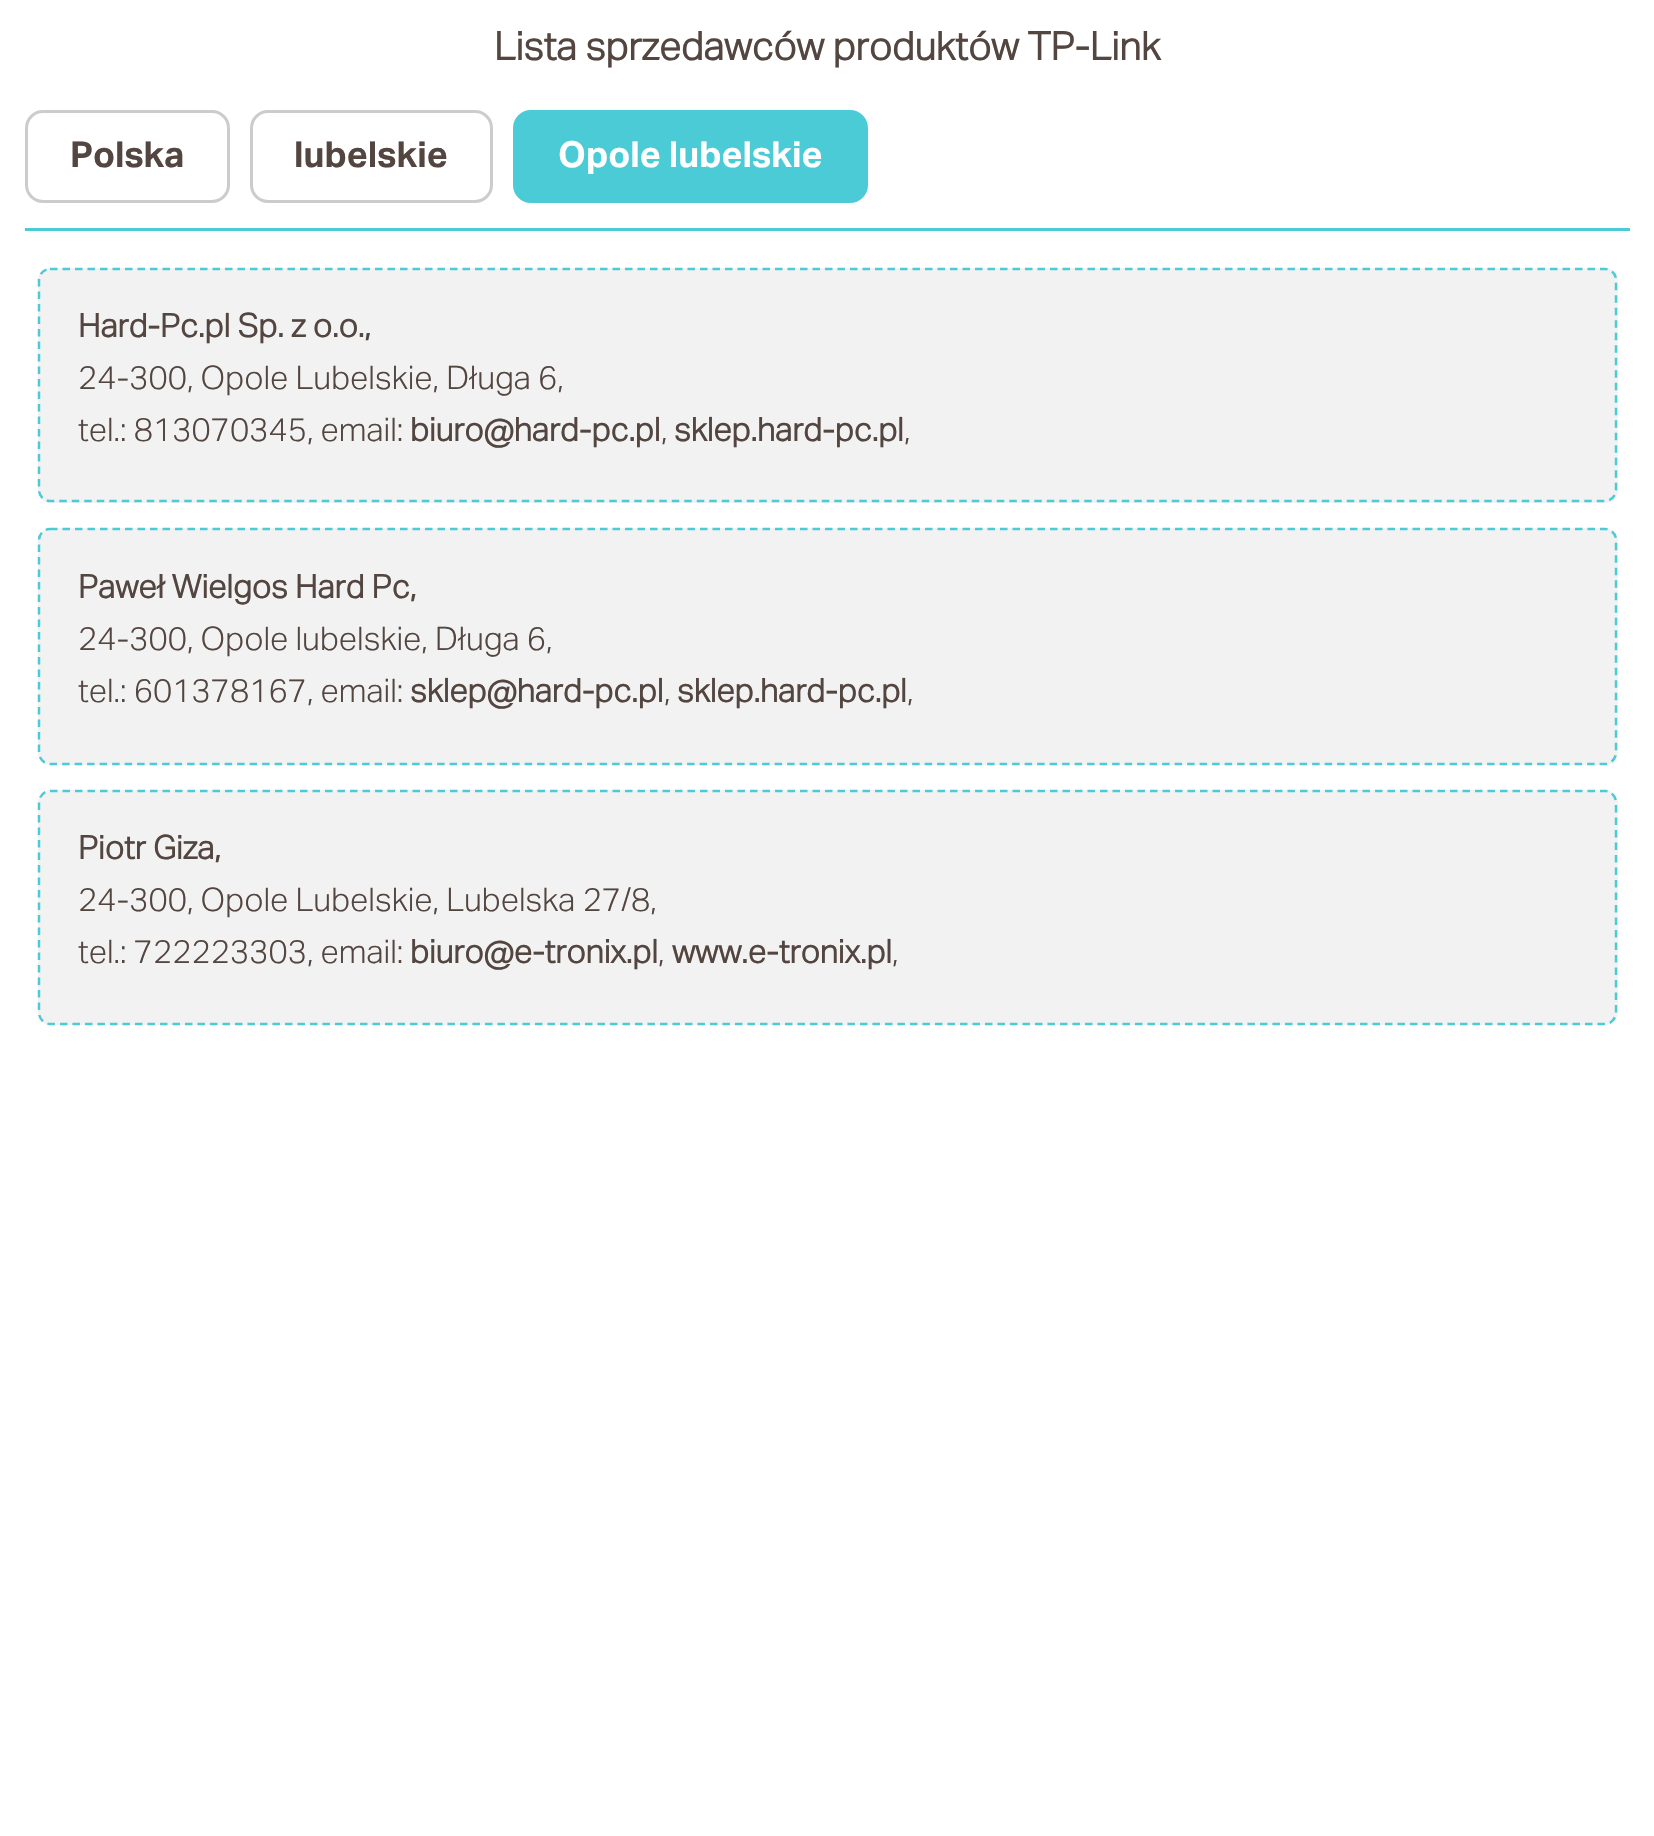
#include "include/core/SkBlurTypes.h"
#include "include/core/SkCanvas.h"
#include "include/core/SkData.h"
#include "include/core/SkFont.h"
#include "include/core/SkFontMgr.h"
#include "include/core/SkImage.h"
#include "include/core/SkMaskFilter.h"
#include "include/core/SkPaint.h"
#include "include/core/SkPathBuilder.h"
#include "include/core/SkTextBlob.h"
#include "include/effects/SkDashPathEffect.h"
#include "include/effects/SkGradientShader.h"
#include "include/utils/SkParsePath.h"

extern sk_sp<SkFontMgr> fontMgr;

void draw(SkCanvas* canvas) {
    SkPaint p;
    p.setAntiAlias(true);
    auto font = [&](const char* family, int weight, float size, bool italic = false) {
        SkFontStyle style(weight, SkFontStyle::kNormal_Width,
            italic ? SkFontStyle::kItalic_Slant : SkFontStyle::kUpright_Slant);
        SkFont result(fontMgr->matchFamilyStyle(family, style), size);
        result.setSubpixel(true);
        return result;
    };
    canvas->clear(0xFFFFFFFF);
    auto font1 = font("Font", 700, 39);
    p.setColor(0xFF534540);
    canvas->drawString("Lista sprzedawców produktów TP-Link", 494, 60, font1, p);
    p.setColor(0xFF4ACBD6);
    canvas->drawRect(SkRect::MakeLTRB(25, 228, 1630, 231), p);
    p.setStyle(SkPaint::kStroke_Style);
    p.setStrokeWidth(3);
    p.setColor(0xFFCCCCCC);
    canvas->drawRoundRect(SkRect::MakeLTRB(26.5f, 111.5f, 228.5f, 201.5f), 16.5f, 16.5f, p);
    auto font2 = font("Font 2", 700, 35.75f);
    p.setStyle(SkPaint::kFill_Style);
    p.setColor(0xFF534540);
    canvas->drawString("Polska", 70, 167, font2, p);
    p.setStyle(SkPaint::kStroke_Style);
    p.setColor(0xFFCCCCCC);
    canvas->drawRoundRect(SkRect::MakeLTRB(251.5f, 111.5f, 491.5f, 201.5f), 16.5f, 16.5f, p);
    p.setStyle(SkPaint::kFill_Style);
    p.setColor(0xFF534540);
    canvas->drawString("lubelskie", 294, 167, font2, p);
    p.setColor(0xFF4ACBD6);
    canvas->drawRoundRect(SkRect::MakeLTRB(514.5f, 111.5f, 866.5f, 201.5f), 16.5f, 16.5f, p);
    p.setStyle(SkPaint::kStroke_Style);
    canvas->drawRoundRect(SkRect::MakeLTRB(514.5f, 111.5f, 866.5f, 201.5f), 16.5f, 16.5f, p);
    p.setStyle(SkPaint::kFill_Style);
    p.setColor(0xFFFFFFFF);
    canvas->drawString("Opole lubelskie", 558, 167, font2, p);
    p.setColor(0xFFF2F2F2);
    canvas->drawRoundRect(SkRect::MakeLTRB(38, 268, 1618, 503), 13, 13, p);
    p.setStyle(SkPaint::kStroke_Style);
    p.setStrokeWidth(2.5f);
    p.setColor(0xFF4ACBD6);
    p.setPathEffect(SkDashPathEffect::Make({{7.5f, 5}}, 0));
    canvas->drawPath(SkPathBuilder().moveTo(50, 269).lineTo(1605, 269).cubicTo(1611, 269, 1616, 274, 1616, 280).lineTo(1616, 490).cubicTo(1616, 496, 1611, 501, 1605, 501).lineTo(50, 501).cubicTo(44, 501, 39, 496, 39, 490).lineTo(39, 280).cubicTo(39, 274, 44, 269, 50, 269).close().detach(), p);
    p.setPathEffect(nullptr);
    auto font3 = font("Font", 700, 32.5f);
    p.setStyle(SkPaint::kFill_Style);
    p.setColor(0xFF534540);
    canvas->drawString("Hard-Pc.pl Sp. z o.o.,", 78, 337, font3, p);
    auto font4 = font("Font", 300, 32.5f);
    canvas->drawString("24-300, Opole Lubelskie, Długa 6,", 78, 389, font4, p);
    canvas->drawString("tel.: 813070345, email:", 78, 441, font4, p);
    canvas->drawString("biuro@hard-pc.pl", 410, 441, font3, p);
    canvas->drawString(",", 661, 441, font4, p);
    canvas->drawString("sklep.hard-pc.pl", 674, 441, font3, p);
    canvas->drawString(",", 904, 441, font4, p);
    p.setColor(0xFFF2F2F2);
    canvas->drawRoundRect(SkRect::MakeLTRB(38, 528, 1618, 765), 13, 13, p);
    p.setStyle(SkPaint::kStroke_Style);
    p.setColor(0xFF4ACBD6);
    p.setPathEffect(SkDashPathEffect::Make({{7.5f, 5}}, 0));
    canvas->drawPath(SkPathBuilder().moveTo(50, 529).lineTo(1605, 529).cubicTo(1611, 529, 1616, 534, 1616, 540).lineTo(1616, 752.5f).cubicTo(1616, 758.5f, 1611, 764, 1605, 764).lineTo(50, 764).cubicTo(44, 764, 39, 758.5f, 39, 752.5f).lineTo(39, 540).cubicTo(39, 534, 44, 529, 50, 529).close().detach(), p);
    p.setPathEffect(nullptr);
    p.setStyle(SkPaint::kFill_Style);
    p.setColor(0xFF534540);
    canvas->drawString("Paweł Wielgos Hard Pc,", 78, 598, font3, p);
    canvas->drawString("24-300, Opole lubelskie, Długa 6,", 78, 650, font4, p);
    canvas->drawString("tel.: 601378167, email:", 78, 702, font4, p);
    canvas->drawString("sklep@hard-pc.pl", 410, 702, font3, p);
    canvas->drawString(",", 664, 702, font4, p);
    canvas->drawString("sklep.hard-pc.pl", 677, 702, font3, p);
    canvas->drawString(",", 907, 702, font4, p);
    p.setColor(0xFFF2F2F2);
    canvas->drawRoundRect(SkRect::MakeLTRB(38, 790, 1618, 1025), 13, 13, p);
    p.setStyle(SkPaint::kStroke_Style);
    p.setColor(0xFF4ACBD6);
    p.setPathEffect(SkDashPathEffect::Make({{7.5f, 5}}, 0));
    canvas->drawPath(SkPathBuilder().moveTo(50, 791).lineTo(1605, 791).cubicTo(1611, 791, 1616, 796.5f, 1616, 802.5f).lineTo(1616, 1012.5f).cubicTo(1616, 1018.5f, 1611, 1024, 1605, 1024).lineTo(50, 1024).cubicTo(44, 1024, 39, 1018.5f, 39, 1012.5f).lineTo(39, 802.5f).cubicTo(39, 796.5f, 44, 791, 50, 791).close().detach(), p);
    p.setPathEffect(nullptr);
    p.setStyle(SkPaint::kFill_Style);
    p.setColor(0xFF534540);
    canvas->drawString("Piotr Giza,", 78, 859, font3, p);
    canvas->drawString("24-300, Opole Lubelskie, Lubelska 27/8,", 78, 911, font4, p);
    canvas->drawString("tel.: 722223303, email:", 78, 963, font4, p);
    canvas->drawString("biuro@e-tronix.pl", 410, 963, font3, p);
    canvas->drawString(",", 658, 963, font4, p);
    canvas->drawString("www.e-tronix.pl", 672, 963, font3, p);
    canvas->drawString(",", 892, 963, font4, p);
}
